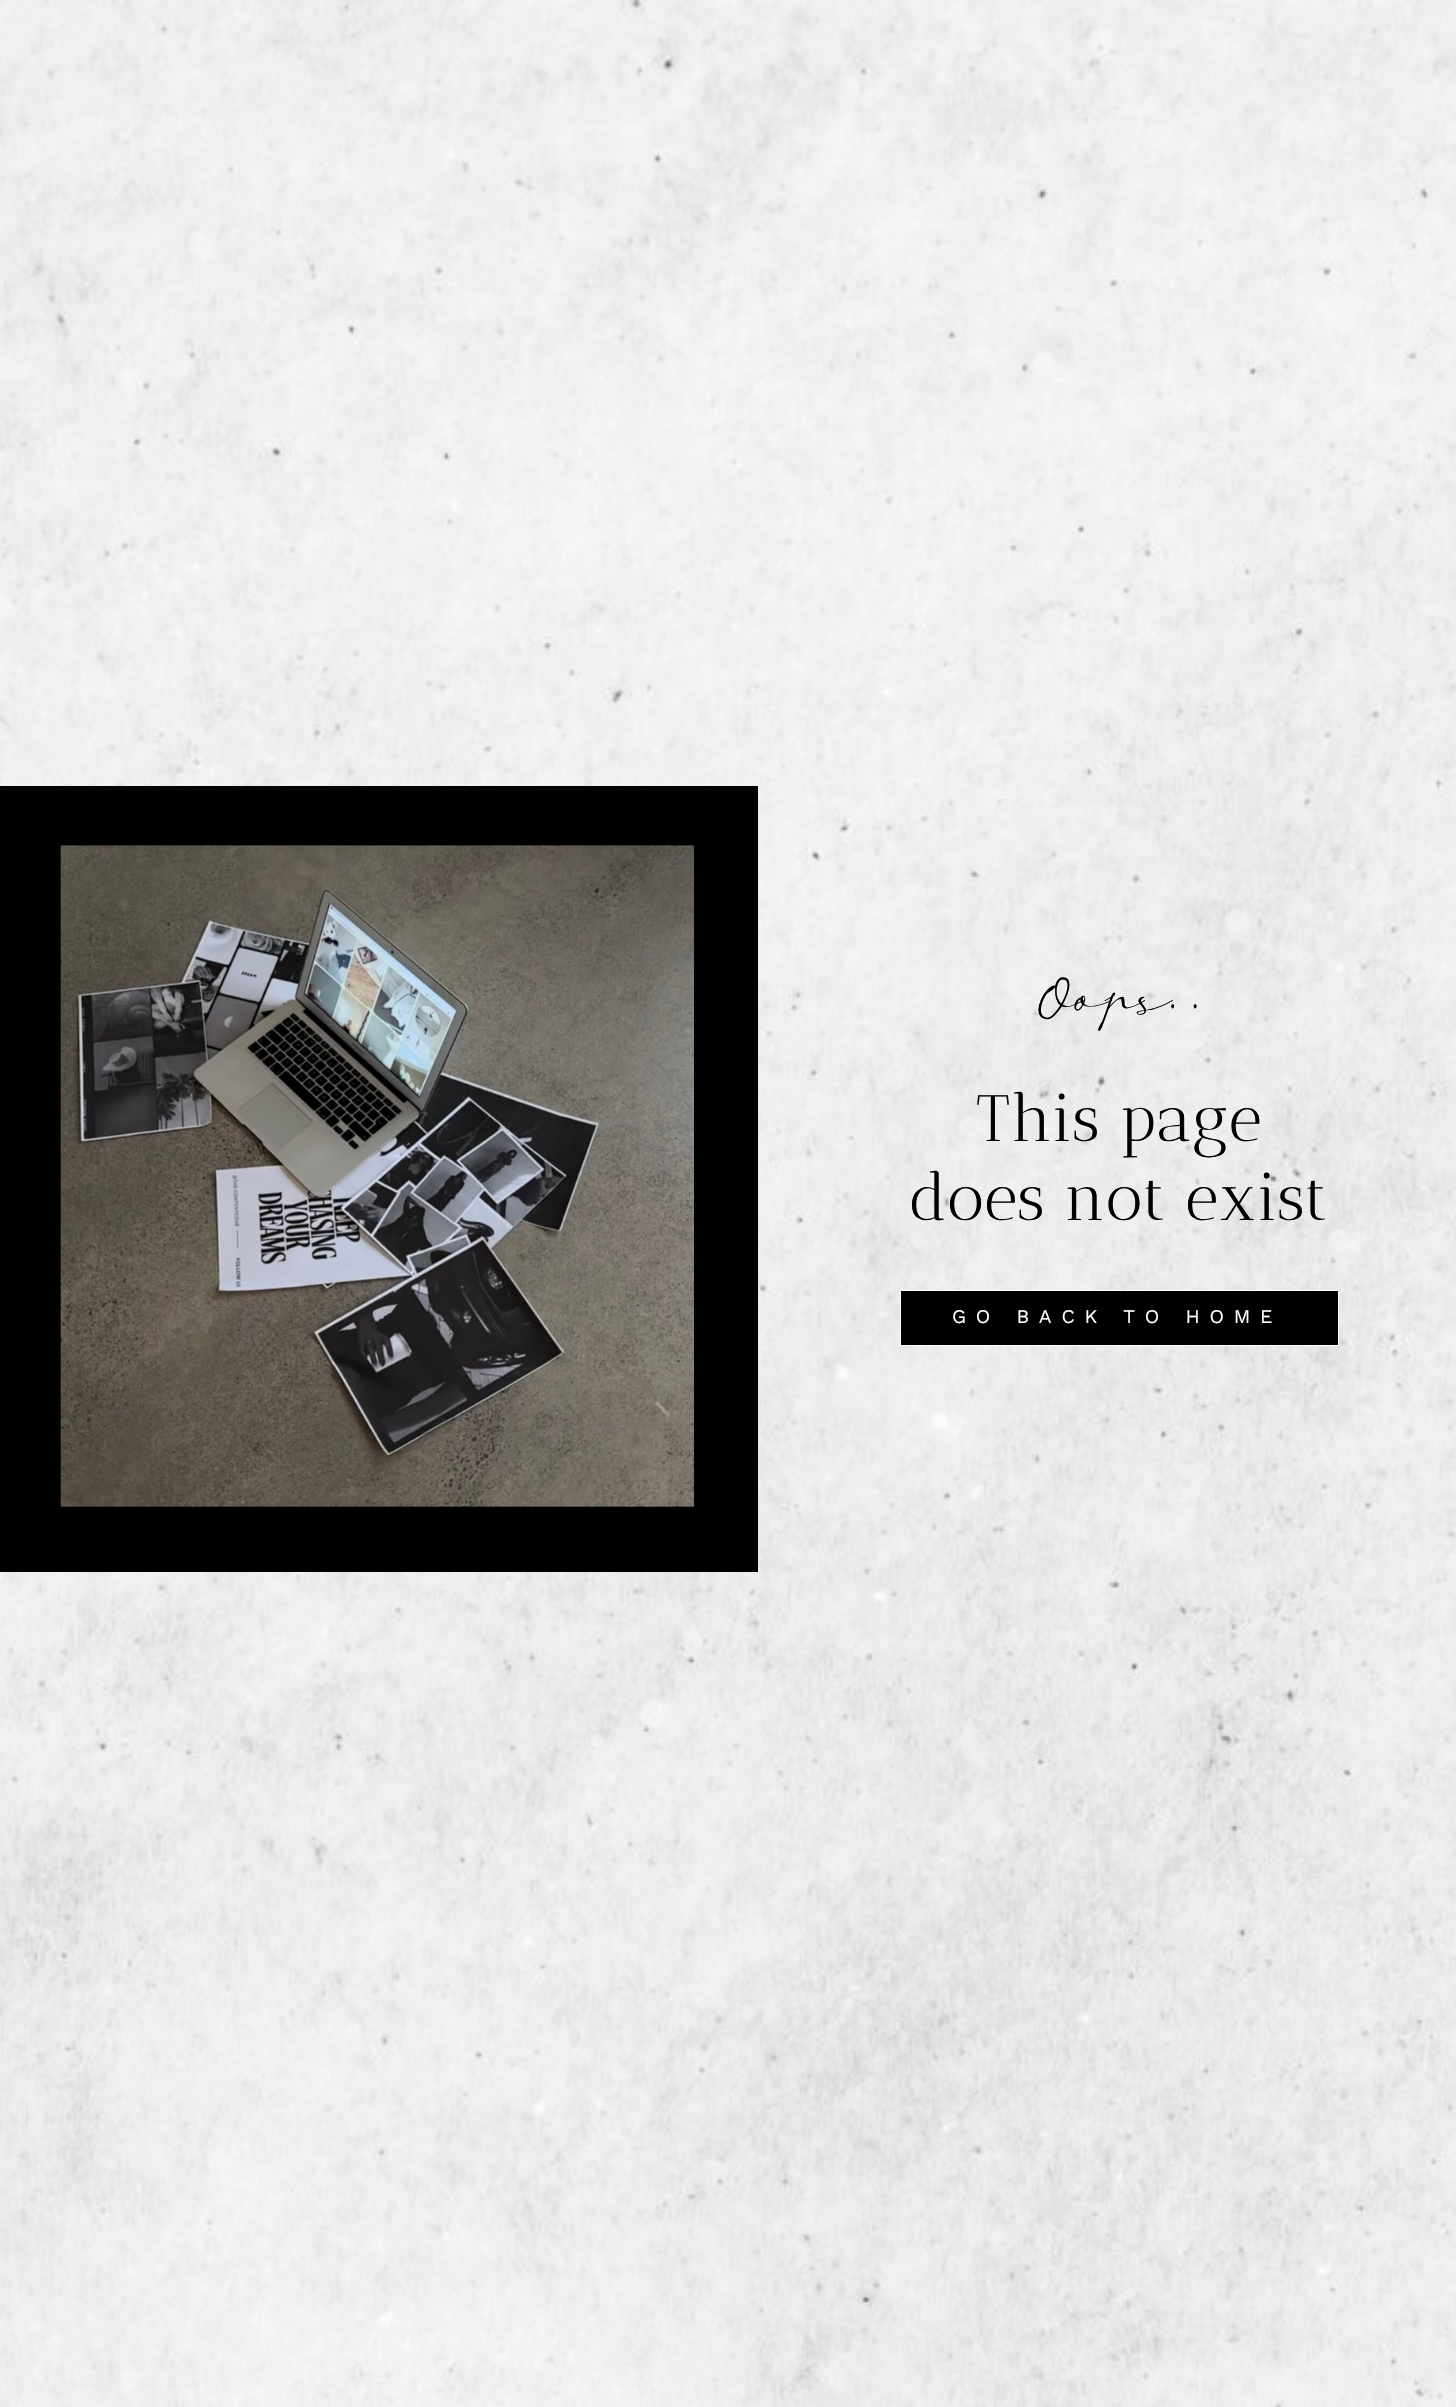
#include "include/core/SkBlurTypes.h"
#include "include/core/SkCanvas.h"
#include "include/core/SkData.h"
#include "include/core/SkFont.h"
#include "include/core/SkFontMgr.h"
#include "include/core/SkImage.h"
#include "include/core/SkMaskFilter.h"
#include "include/core/SkPaint.h"
#include "include/core/SkPathBuilder.h"
#include "include/core/SkTextBlob.h"
#include "include/effects/SkDashPathEffect.h"
#include "include/effects/SkGradientShader.h"
#include "include/utils/SkParsePath.h"

extern sk_sp<SkFontMgr> fontMgr;

void draw(SkCanvas* canvas) {
    SkPaint p;
    p.setAntiAlias(true);
    auto font = [&](const char* family, int weight, float size, bool italic = false) {
        SkFontStyle style(weight, SkFontStyle::kNormal_Width,
            italic ? SkFontStyle::kItalic_Slant : SkFontStyle::kUpright_Slant);
        SkFont result(fontMgr->matchFamilyStyle(family, style), size);
        result.setSubpixel(true);
        return result;
    };
    auto drawTracked = [&](const char* s, float x, float y, const SkFont& font, const SkPaint& ink, float letter, float word) {
        std::vector<SkGlyphID> glyphs(font.countText(s, strlen(s), SkTextEncoding::kUTF8));
        std::vector<float> xs(glyphs.size());
        font.textToGlyphs(s, strlen(s), SkTextEncoding::kUTF8, glyphs);
        font.getXPos(glyphs, xs, x);
        float extra = 0;
        for (size_t i = 0; i < glyphs.size(); i++) {
            xs[i] += extra;
            extra += letter + word * (glyphs[i] == font.unicharToGlyph(' '));
        }
        canvas->drawTextBlob(SkTextBlob::MakeFromPosHGlyphs(glyphs, xs, y, font), 0, 0, ink);
    };
    auto drawPhoto = [&](const char* path, float l, float t, float r, float b) {
        auto image = SkImages::DeferredFromEncodedData(SkData::MakeFromFileName(path));
        canvas->drawImageRect(image, SkRect::MakeLTRB(l, t, r, b), SkSamplingOptions());
    };
    canvas->clear(0xFFFFFFFF);
    drawPhoto("media/1.png", 0, 0, 1456, 2407);
    p.setColor(0xFF000000);
    canvas->drawRect(SkRect::MakeLTRB(0, 786, 758, 1572), p);
    drawPhoto("media/2.png", 60, 845, 695, 1507);
    auto font1 = font("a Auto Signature", 400, 61);
    drawTracked("Oops..", 1035, 1009, font1, p, -6, 0);
    auto font2 = font("Antic Didone", 400, 65.5f);
    canvas->drawString("This page", 976, 1141, font2, p);
    canvas->drawString("does not exist", 909, 1220, font2, p);
    canvas->drawRect(SkRect::MakeLTRB(900.5f, 1290.5f, 1338.5f, 1345.5f), p);
    p.setStyle(SkPaint::kStroke_Style);
    p.setStrokeWidth(1);
    p.setColor(0xFFFFFFFF);
    canvas->drawRect(SkRect::MakeLTRB(900.5f, 1290.5f, 1338.5f, 1345.5f), p);
    auto font3 = font("Work Sans", 400, 19.4f);
    p.setStyle(SkPaint::kFill_Style);
    drawTracked("GO BACK TO HOME", 952, 1323, font3, p, 9.75f, 0);
}
